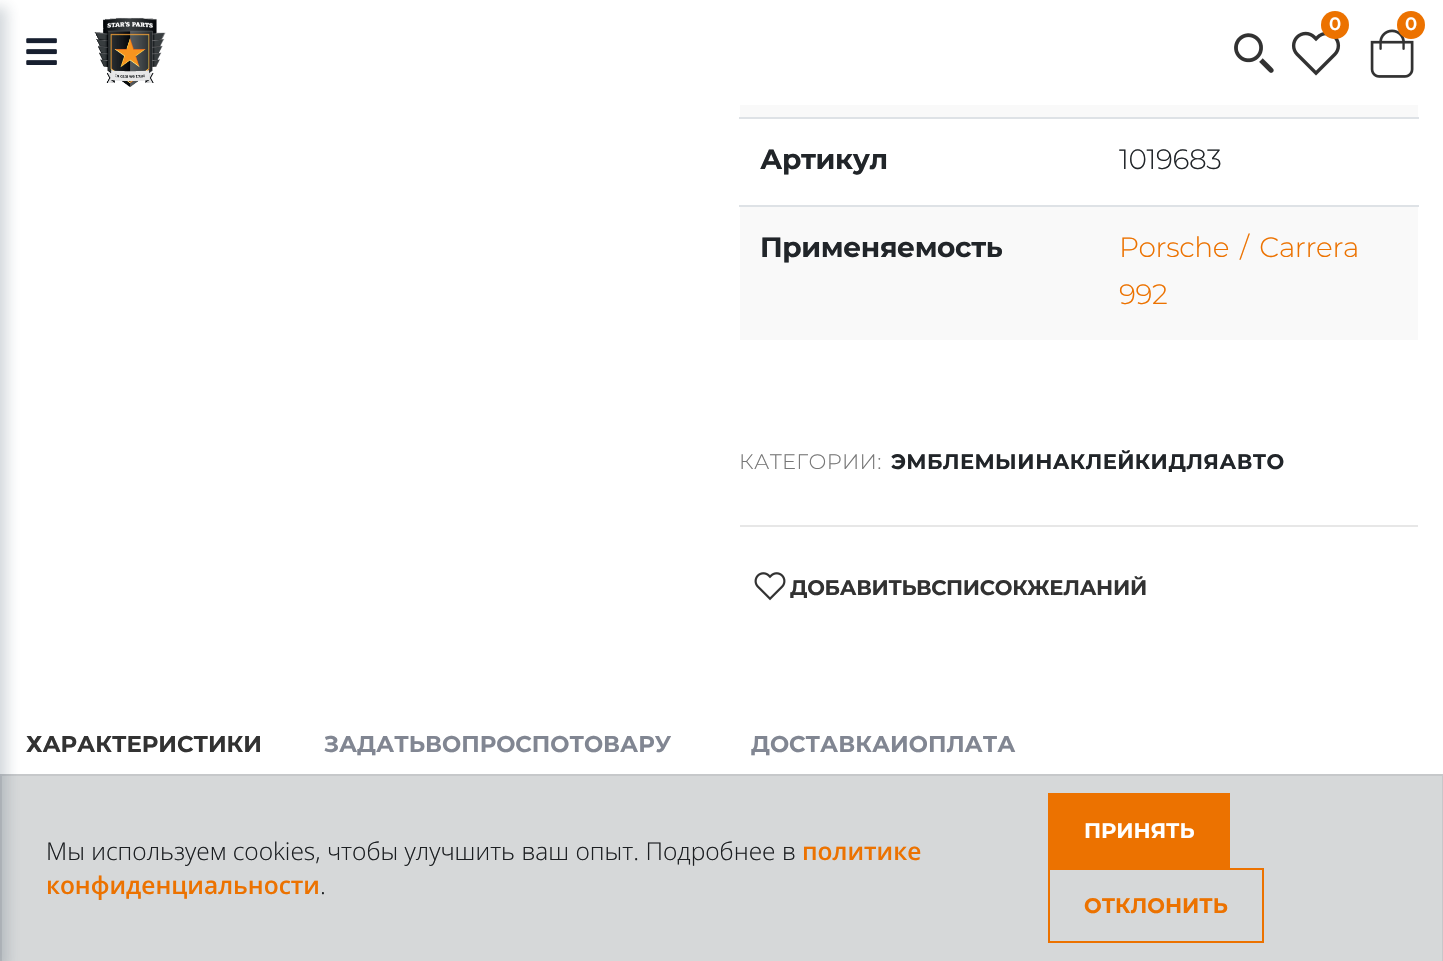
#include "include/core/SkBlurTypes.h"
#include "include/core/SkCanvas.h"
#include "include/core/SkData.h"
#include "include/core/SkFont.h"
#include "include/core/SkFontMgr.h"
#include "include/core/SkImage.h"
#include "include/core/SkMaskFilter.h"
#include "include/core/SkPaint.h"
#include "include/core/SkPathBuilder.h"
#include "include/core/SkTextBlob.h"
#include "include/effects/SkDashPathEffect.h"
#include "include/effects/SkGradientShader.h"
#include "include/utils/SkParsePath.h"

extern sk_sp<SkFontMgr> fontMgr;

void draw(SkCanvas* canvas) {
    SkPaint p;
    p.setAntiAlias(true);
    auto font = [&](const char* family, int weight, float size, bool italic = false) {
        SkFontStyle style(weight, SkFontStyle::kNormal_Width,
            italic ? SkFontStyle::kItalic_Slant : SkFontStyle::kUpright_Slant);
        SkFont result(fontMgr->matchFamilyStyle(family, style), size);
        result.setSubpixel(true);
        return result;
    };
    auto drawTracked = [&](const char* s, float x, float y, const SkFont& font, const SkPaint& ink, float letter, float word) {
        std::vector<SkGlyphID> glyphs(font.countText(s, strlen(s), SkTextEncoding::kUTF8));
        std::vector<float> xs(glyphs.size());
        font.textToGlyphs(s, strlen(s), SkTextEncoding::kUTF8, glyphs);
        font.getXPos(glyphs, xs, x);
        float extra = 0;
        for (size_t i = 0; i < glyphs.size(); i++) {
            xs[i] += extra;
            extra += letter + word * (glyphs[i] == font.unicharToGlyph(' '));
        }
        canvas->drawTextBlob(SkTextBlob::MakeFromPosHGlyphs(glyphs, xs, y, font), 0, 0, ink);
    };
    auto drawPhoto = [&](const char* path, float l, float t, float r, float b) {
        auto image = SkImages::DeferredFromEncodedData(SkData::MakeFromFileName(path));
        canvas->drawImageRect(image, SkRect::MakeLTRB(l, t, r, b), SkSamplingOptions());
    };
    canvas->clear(0xFFFFFFFF);
    drawPhoto("media/1.png", 26, 38, 57, 65);
    p.setColor(0xFFD6D8D9);
    canvas->drawRect(SkRect::MakeLTRB(1, 775, 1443, 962), p);
    p.setStyle(SkPaint::kStroke_Style);
    p.setStrokeWidth(2);
    p.setColor(0xFFC6C8CA);
    canvas->drawRect(SkRect::MakeLTRB(1, 775, 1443, 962), p);
    p.setStyle(SkPaint::kFill_Style);
    p.setColor(0x33223C50);
    p.setMaskFilter(SkMaskFilter::MakeBlur(kNormal_SkBlurStyle, 7));
    canvas->drawRect(SkRect::MakeLTRB(-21, 7, 7, 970), p);
    p.setMaskFilter(nullptr);
    drawPhoto("media/2.png", 94, 17, 166, 87);
    drawPhoto("media/3.png", 1234, 33, 1274, 73);
    drawPhoto("media/4.png", 1291, 31, 1341, 76);
    p.setColor(0xFFEC7200);
    canvas->drawCircle(1335, 25, 14, p);
    auto font1 = font("Montserrat", 600, 18);
    p.setColor(0xFFFFFFFF);
    canvas->drawString("0", 1329, 30, font1, p);
    drawPhoto("media/5.png", 1370, 29, 1414, 78);
    p.setColor(0xFFEC7200);
    canvas->drawCircle(1411, 25, 14, p);
    p.setColor(0xFFFFFFFF);
    canvas->drawString("0", 1405, 30, font1, p);
    p.setColor(0xFFF9F9F9);
    canvas->drawRect(SkRect::MakeLTRB(740, 105, 1418, 117), p);
    auto font2 = font("Montserrat", 700, 28);
    p.setColor(0xFF212529);
    drawTracked("Артикул", 760, 169, font2, p, -0.4f, 0);
    p.setColor(0xFFDEE2E6);
    canvas->drawRect(SkRect::MakeLTRB(739, 117, 1419, 119), p);
    auto font3 = font("Montserrat", 300, 28);
    p.setColor(0xFF212529);
    drawTracked("1019683", 1119, 169, font3, p, -0.4f, 0);
    p.setColor(0xFFF9F9F9);
    canvas->drawRect(SkRect::MakeLTRB(740, 207, 1418, 340), p);
    p.setColor(0xFF212529);
    drawTracked("Применяемость", 760, 257, font2, p, -0.4f, 0);
    p.setColor(0xFFDEE2E6);
    canvas->drawRect(SkRect::MakeLTRB(739, 205, 1419, 207), p);
    p.setColor(0xFFEC7200);
    drawTracked("Porsche / Carrera", 1119, 257, font3, p, -0.4f, 4);
    drawTracked("992", 1119, 304, font3, p, -0.4f, 0);
    auto font4 = font("Montserrat", 300, 21);
    p.setColor(0xFF777777);
    drawTracked("КАТЕГОРИИ:", 739, 469, font4, p, 0.35f, 0);
    auto font5 = font("Montserrat", 700, 21);
    p.setColor(0xFF212529);
    drawTracked("ЭМБЛЕМЫ И НАКЛЕЙКИ ДЛЯ АВТО", 891, 469, font5, p, 0.35f, 0);
    p.setColor(0xFFE7E7E7);
    canvas->drawRect(SkRect::MakeLTRB(740, 525, 1418, 527), p);
    drawPhoto("media/6.png", 754, 572, 786, 601);
    p.setColor(0xFF323232);
    drawTracked("ДОБАВИТЬ В СПИСОК ЖЕЛАНИЙ", 790, 595, font5, p, -0.3f, 0);
    auto font6 = font("Montserrat", 700, 22.75f);
    canvas->drawString("ХАРАКТЕРИСТИКИ", 26, 752, font6, p);
    p.setColor(0xFF818692);
    canvas->drawString("ЗАДАТЬ ВОПРОС ПО ТОВАРУ", 324, 752, font6, p);
    canvas->drawString("ДОСТАВКА И ОПЛАТА", 751, 752, font6, p);
    auto font7 = font("Open Sans", 300, 24.5f);
    p.setColor(0xFF1B1E21);
    canvas->drawString("Мы используем cookies, чтобы улучшить ваш опыт. Подробнее в", 46, 860, font7, p);
    auto font8 = font("Open Sans", 600, 24.5f);
    p.setColor(0xFFEC7200);
    canvas->drawString("политике", 802, 860, font8, p);
    canvas->drawString("конфиденциальности", 46, 894, font8, p);
    p.setColor(0xFF1B1E21);
    canvas->drawString(".", 320, 894, font7, p);
    p.setColor(0xFFEC7200);
    canvas->drawRect(SkRect::MakeLTRB(1048, 793, 1230, 868), p);
    p.setColor(0xFFFFFFFF);
    canvas->drawString("ПРИНЯТЬ", 1084, 838, font5, p);
    p.setStyle(SkPaint::kStroke_Style);
    p.setColor(0xFFEC7200);
    canvas->drawRect(SkRect::MakeLTRB(1049, 869, 1263, 942), p);
    p.setStyle(SkPaint::kFill_Style);
    canvas->drawString("ОТКЛОНИТЬ", 1084, 913, font5, p);
}
